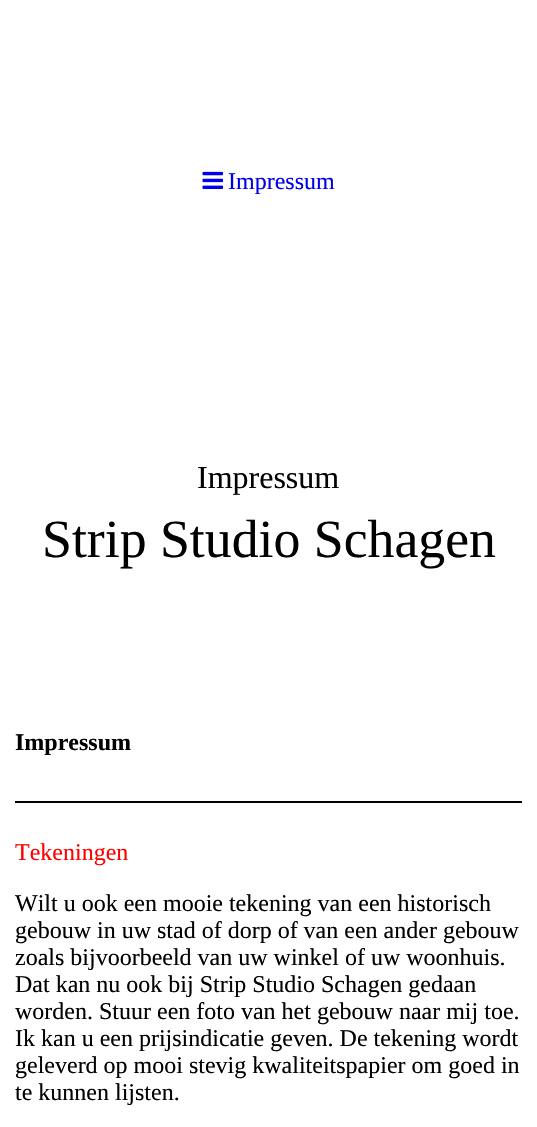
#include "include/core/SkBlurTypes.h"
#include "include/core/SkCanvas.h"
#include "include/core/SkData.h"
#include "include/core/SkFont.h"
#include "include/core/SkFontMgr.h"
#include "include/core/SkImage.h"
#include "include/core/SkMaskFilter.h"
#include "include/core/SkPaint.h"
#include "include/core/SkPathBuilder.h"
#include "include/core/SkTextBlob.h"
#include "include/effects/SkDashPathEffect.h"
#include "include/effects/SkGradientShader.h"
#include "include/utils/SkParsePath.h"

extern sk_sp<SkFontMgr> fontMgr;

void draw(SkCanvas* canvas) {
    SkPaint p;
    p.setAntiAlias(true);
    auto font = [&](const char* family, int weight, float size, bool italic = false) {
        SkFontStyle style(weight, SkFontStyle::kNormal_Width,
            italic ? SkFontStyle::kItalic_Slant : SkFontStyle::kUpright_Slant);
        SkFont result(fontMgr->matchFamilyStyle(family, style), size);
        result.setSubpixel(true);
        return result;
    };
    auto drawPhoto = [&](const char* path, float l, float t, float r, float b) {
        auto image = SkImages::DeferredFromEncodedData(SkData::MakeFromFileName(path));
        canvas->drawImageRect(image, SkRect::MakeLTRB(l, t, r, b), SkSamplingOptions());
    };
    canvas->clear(0xFFFFFFFF);
    drawPhoto("media/1.png", 202, 171, 224, 189);
    auto font1 = font("Liberation Serif", 400, 24);
    p.setColor(0xFF0000EE);
    canvas->drawString("Impressum", 228, 189, font1, p);
    auto font2 = font("Liberation Serif", 400, 32);
    p.setColor(0xFF000000);
    canvas->drawString("Impressum", 197, 488, font2, p);
    auto font3 = font("Liberation Serif", 400, 53.75f);
    canvas->drawString("Strip Studio Schagen", 42, 557, font3, p);
    auto font4 = font("Liberation Serif", 700, 24);
    canvas->drawString("Impressum", 15, 750, font4, p);
    canvas->drawRect(SkRect::MakeLTRB(15, 801, 522, 803), p);
    p.setColor(0xFFFF0000);
    canvas->drawString("Tekeningen", 15, 860, font1, p);
    p.setColor(0xFF000000);
    {
        const struct { const char* s; float x, y; } items[] = {
            {"Wilt u ook een mooie tekening van een historisch", 15, 911},
            {"gebouw in uw stad of dorp of van een ander gebouw", 15, 938},
            {"zoals bijvoorbeeld van uw winkel of uw woonhuis.", 15, 965},
            {"Dat kan nu ook bij Strip Studio Schagen gedaan", 15, 992},
            {"worden. Stuur een foto van het gebouw naar mij toe.", 15, 1019},
            {"Ik kan u een prijsindicatie geven. De tekening wordt", 15, 1046},
            {"geleverd op mooi stevig kwaliteitspapier om goed in", 15, 1073},
            {"te kunnen lijsten.", 15, 1100},
        };
        for (auto [s, x, y] : items) {
            canvas->drawString(s, x, y, font1, p);
        }
    }
}
